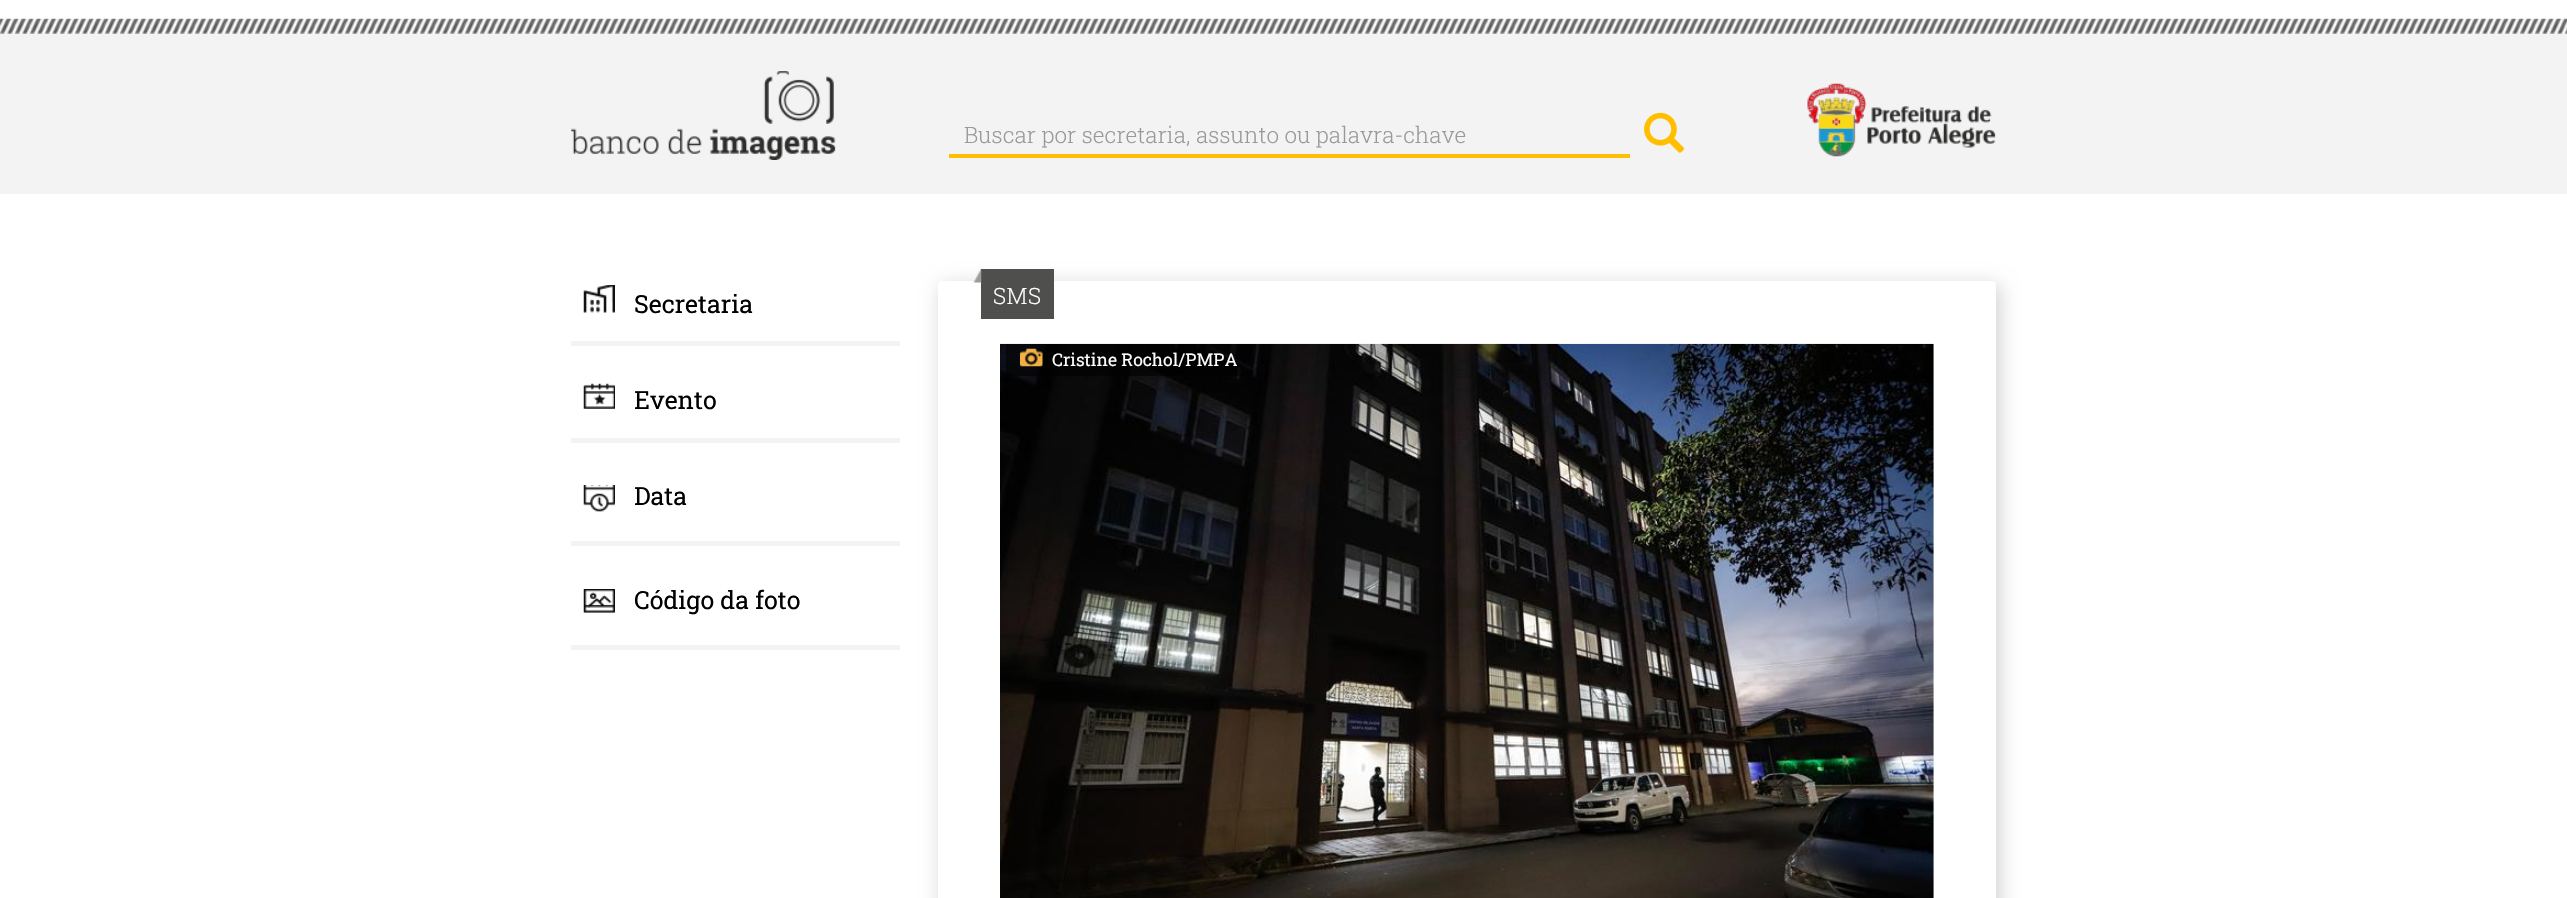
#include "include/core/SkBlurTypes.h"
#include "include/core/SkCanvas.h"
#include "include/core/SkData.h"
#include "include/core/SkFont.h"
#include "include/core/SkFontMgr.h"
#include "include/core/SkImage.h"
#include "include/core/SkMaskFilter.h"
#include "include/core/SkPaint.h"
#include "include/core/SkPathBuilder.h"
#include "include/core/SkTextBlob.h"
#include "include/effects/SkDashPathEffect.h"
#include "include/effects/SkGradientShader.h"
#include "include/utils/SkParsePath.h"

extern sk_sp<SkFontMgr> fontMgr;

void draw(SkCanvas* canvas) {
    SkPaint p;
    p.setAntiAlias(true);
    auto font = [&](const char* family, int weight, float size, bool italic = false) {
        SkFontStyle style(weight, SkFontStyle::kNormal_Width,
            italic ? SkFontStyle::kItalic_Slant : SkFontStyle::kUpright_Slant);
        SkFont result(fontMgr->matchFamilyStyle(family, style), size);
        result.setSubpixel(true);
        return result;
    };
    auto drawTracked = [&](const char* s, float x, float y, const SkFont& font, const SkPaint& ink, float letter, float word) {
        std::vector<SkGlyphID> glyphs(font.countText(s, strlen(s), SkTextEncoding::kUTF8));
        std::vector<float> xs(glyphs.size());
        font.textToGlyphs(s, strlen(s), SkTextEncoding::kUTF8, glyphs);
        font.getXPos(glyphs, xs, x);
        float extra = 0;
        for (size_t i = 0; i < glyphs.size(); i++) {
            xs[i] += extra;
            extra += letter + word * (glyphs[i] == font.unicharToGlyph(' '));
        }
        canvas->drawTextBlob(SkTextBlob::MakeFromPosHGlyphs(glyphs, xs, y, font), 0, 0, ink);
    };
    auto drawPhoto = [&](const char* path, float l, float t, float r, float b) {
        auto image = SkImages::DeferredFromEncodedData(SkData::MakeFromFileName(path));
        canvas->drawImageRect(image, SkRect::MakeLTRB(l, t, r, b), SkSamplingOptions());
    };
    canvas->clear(0xFFFFFFFF);
    p.setColor(0xFFF3F3F3);
    canvas->drawRect(SkRect::MakeLTRB(0, 19, 2567, 194), p);
    drawPhoto("media/1.png", 0, 18, 2567, 34);
    drawPhoto("media/2.png", 571, 71, 836, 160);
    p.setColor(0xFFFFBF00);
    canvas->drawRect(SkRect::MakeLTRB(949, 154, 1630, 158), p);
    auto font1 = font("Roboto Slab", 300, 22.5f);
    p.setColor(0xFF999999);
    canvas->drawString("Buscar por secretaria, assunto ou palavra-chave", 964, 143, font1, p);
    drawPhoto("media/3.png", 1644, 112, 1685, 153);
    drawPhoto("media/4.png", 1807, 83, 1996, 157);
    p.setColor(0xFFF3F3F3);
    canvas->drawRect(SkRect::MakeLTRB(571, 341, 900, 346), p);
    drawPhoto("media/5.png", 583, 285, 615, 313);
    auto font2 = font("Roboto Slab", 400, 25);
    p.setColor(0xFF000000);
    canvas->drawString("Secretaria", 634, 313, font2, p);
    p.setColor(0xFFF3F3F3);
    canvas->drawRect(SkRect::MakeLTRB(571, 438, 900, 443), p);
    drawPhoto("media/6.png", 583, 383, 615, 409);
    p.setColor(0xFF000000);
    canvas->drawString("Evento", 634, 409, font2, p);
    p.setColor(0xFFF3F3F3);
    canvas->drawRect(SkRect::MakeLTRB(571, 541, 900, 546), p);
    drawPhoto("media/7.png", 583, 485, 615, 512);
    p.setColor(0xFF000000);
    canvas->drawString("Data", 634, 505, font2, p);
    p.setColor(0xFFF3F3F3);
    canvas->drawRect(SkRect::MakeLTRB(571, 645, 900, 650), p);
    drawPhoto("media/8.png", 583, 589, 615, 613);
    p.setColor(0xFF000000);
    canvas->drawString("Código da foto", 634, 609, font2, p);
    p.setColor(0xFFD1D1D1);
    p.setMaskFilter(SkMaskFilter::MakeBlur(kNormal_SkBlurStyle, 9.5f));
    canvas->drawRoundRect(SkRect::MakeLTRB(941, 285, 2000, 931), 4, 4, p);
    p.setMaskFilter(nullptr);
    p.setColor(0xFFFFFFFF);
    canvas->drawRoundRect(SkRect::MakeLTRB(938, 281, 1996, 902), 4, 4, p);
    drawPhoto("media/9.png", 1000, 343, 1934, 898);
    p.setColor(0xFF4F4F4E);
    canvas->drawRect(SkRect::MakeLTRB(981, 269, 1054, 319), p);
    drawPhoto("media/10.png", 973, 268, 982, 283);
    p.setColor(0xFFFFFFFF);
    drawTracked("SMS", 993, 304, font1, p, 0.5f, 0);
    p.setColor(0x99000000);
    canvas->drawRect(SkRect::MakeLTRB(1006, 344, 1253, 376), p);
    drawPhoto("media/11.png", 1020, 348, 1043, 367);
    auto font3 = font("Roboto Slab", 400, 17.5f);
    p.setColor(0xFFFFFFFF);
    canvas->drawString("Cristine Rochol/PMPA", 1052, 366, font3, p);
}
